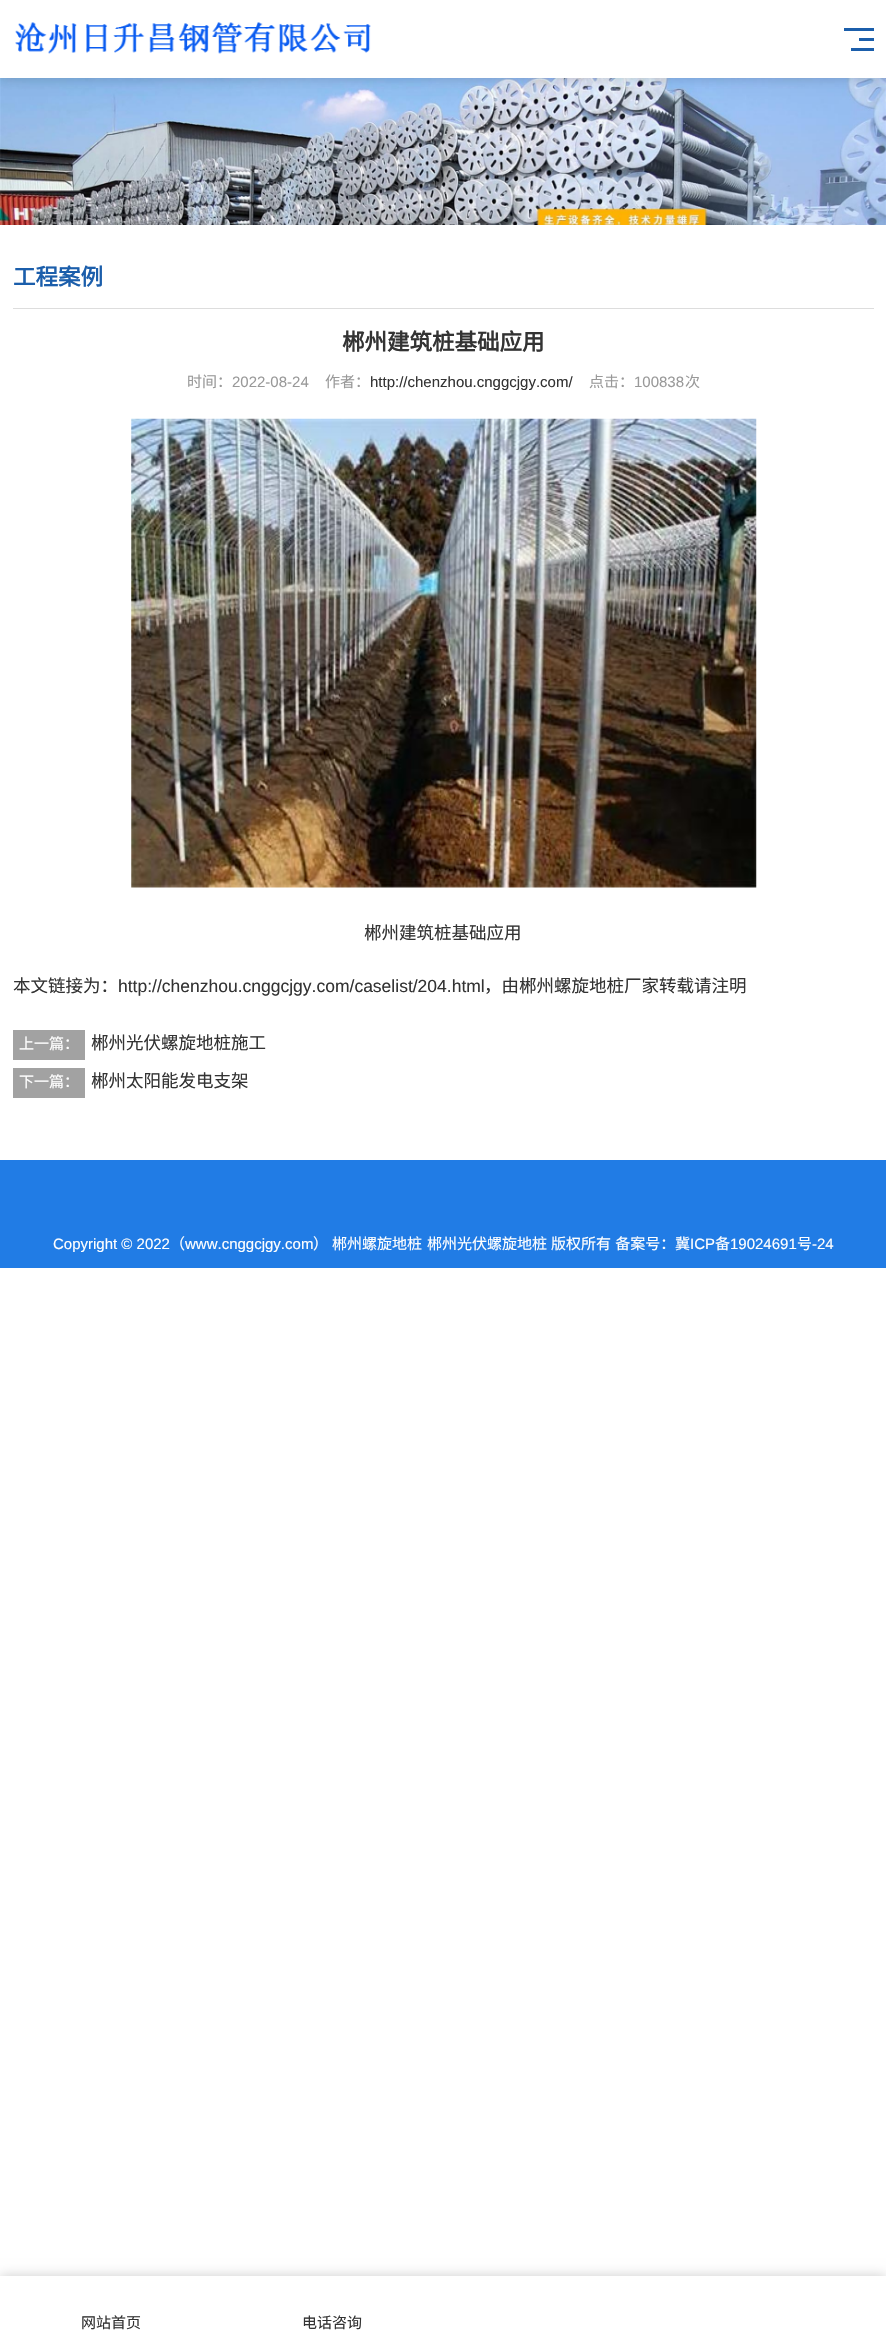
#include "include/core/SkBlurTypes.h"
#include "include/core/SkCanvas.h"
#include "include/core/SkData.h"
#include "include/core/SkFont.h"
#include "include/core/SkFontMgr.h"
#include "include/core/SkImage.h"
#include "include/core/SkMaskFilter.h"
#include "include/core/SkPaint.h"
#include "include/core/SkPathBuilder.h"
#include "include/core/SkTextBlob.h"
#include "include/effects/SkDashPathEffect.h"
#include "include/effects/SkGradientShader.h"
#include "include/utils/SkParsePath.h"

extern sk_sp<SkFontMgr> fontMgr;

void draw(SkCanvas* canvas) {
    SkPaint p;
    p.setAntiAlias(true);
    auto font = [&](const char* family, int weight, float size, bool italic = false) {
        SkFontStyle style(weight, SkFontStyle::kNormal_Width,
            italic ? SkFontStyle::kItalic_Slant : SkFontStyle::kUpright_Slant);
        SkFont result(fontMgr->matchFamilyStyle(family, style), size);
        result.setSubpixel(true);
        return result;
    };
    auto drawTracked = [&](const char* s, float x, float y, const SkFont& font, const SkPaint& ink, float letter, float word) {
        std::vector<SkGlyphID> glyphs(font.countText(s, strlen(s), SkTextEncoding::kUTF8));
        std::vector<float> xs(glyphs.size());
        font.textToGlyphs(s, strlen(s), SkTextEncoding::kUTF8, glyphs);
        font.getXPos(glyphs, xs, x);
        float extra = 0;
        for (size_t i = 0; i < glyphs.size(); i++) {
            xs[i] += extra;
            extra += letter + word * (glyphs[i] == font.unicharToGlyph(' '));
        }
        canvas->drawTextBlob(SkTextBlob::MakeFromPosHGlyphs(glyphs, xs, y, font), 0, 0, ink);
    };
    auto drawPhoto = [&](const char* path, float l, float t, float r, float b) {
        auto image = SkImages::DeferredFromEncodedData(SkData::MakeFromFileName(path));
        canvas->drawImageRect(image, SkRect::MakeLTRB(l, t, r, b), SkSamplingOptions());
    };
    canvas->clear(0xFFFFFFFF);
    drawPhoto("media/2.png", 0, 78, 886, 225);
    p.setColor(0x33000000);
    p.setMaskFilter(SkMaskFilter::MakeBlur(kNormal_SkBlurStyle, 6));
    canvas->drawRect(SkRect::MakeLTRB(0, 0, 886, 78), p);
    p.setMaskFilter(nullptr);
    p.setColor(0xFFFFFFFF);
    canvas->drawRect(SkRect::MakeLTRB(0, 0, 886, 78), p);
    drawPhoto("media/1.png", 15, 22, 371, 54);
    {
        const struct { float l, t, r, b; SkColor color; } items[] = {
            {844, 28, 874, 31, 0xFF1B5EAB},
            {859, 38, 874, 41, 0xFF1B5EAB},
            {851, 48, 874, 51, 0xFF1B5EAB},
            {13, 308, 874, 309, 0xFFDDDDDD},
        };
        for (auto [l, t, r, b, color] : items) {
            p.setColor(color);
            canvas->drawRect(SkRect::MakeLTRB(l, t, r, b), p);
        }
    }
    auto font1 = font("Noto Sans CJK SC", 700, 22.5f);
    p.setColor(0xFF1B5EAB);
    canvas->drawString("工程案例", 13, 285, font1, p);
    p.setColor(0xFF333333);
    canvas->drawString("郴州建筑桩基础应用", 342, 350, font1, p);
    auto font2 = font("Noto Sans CJK SC", 400, 15);
    p.setColor(0xFF999999);
    canvas->drawString("时间：", 187, 387, font2, p);
    auto font3 = font("Liberation Sans", 400, 15);
    canvas->drawString("2022-08-24", 232, 387, font3, p);
    canvas->drawString("作者：", 325, 387, font2, p);
    p.setColor(0xFF333333);
    canvas->drawString("http://chenzhou.cnggcjgy.com/", 370, 387, font3, p);
    p.setColor(0xFF999999);
    canvas->drawString("点击：", 589, 387, font2, p);
    canvas->drawString("100838", 634, 387, font3, p);
    canvas->drawString("次", 685, 387, font2, p);
    drawPhoto("media/3.png", 131, 418, 757, 888);
    auto font4 = font("Noto Sans CJK SC", 400, 17.5f);
    p.setColor(0xFF333333);
    canvas->drawString("郴州建筑桩基础应用", 364, 939, font4, p);
    canvas->drawString("本文链接为：", 13, 992, font4, p);
    auto font5 = font("Liberation Sans", 400, 17.5f);
    canvas->drawString("http://chenzhou.cnggcjgy.com/caselist/204.html", 118, 992, font5, p);
    canvas->drawString("，由郴州螺旋地桩厂家转载请注明", 484, 992, font4, p);
    p.setColor(0xFFA2A2A2);
    canvas->drawRect(SkRect::MakeLTRB(13, 1030, 85, 1060), p);
    p.setColor(0xFFFFFFFF);
    canvas->drawString("上一篇：", 19, 1049, font2, p);
    p.setColor(0xFF333333);
    canvas->drawString("郴州光伏螺旋地桩施工", 91, 1049, font4, p);
    p.setColor(0xFFA2A2A2);
    canvas->drawRect(SkRect::MakeLTRB(13, 1068, 85, 1098), p);
    p.setColor(0xFFFFFFFF);
    canvas->drawString("下一篇：", 19, 1087, font2, p);
    p.setColor(0xFF333333);
    canvas->drawString("郴州太阳能发电支架", 91, 1087, font4, p);
    p.setColor(0xFF217CE5);
    canvas->drawRect(SkRect::MakeLTRB(0, 1160, 886, 1268), p);
    p.setColor(0xFFFFFFFF);
    canvas->drawString("Copyright © 2022", 53, 1249, font3, p);
    canvas->drawString("（", 170, 1249, font2, p);
    canvas->drawString("www.cnggcjgy.com", 185, 1249, font3, p);
    {
        const struct { const char* s; float x, y; } items[] = {
            {"）", 313, 1249},
            {"郴州螺旋地桩", 332, 1249},
            {"郴州光伏螺旋地桩", 427, 1249},
        };
        for (auto [s, x, y] : items) {
            canvas->drawString(s, x, y, font2, p);
        }
    }
    drawTracked("版权所有 备案号：", 551, 1249, font2, p, 0, 1);
    canvas->drawString("冀", 675, 1249, font2, p);
    canvas->drawString("ICP", 690, 1249, font3, p);
    canvas->drawString("备", 715, 1249, font2, p);
    canvas->drawString("19024691", 730, 1249, font3, p);
    canvas->drawString("号", 797, 1249, font2, p);
    canvas->drawString("-24", 812, 1249, font3, p);
    p.setColor(0x33000000);
    p.setMaskFilter(SkMaskFilter::MakeBlur(kNormal_SkBlurStyle, 6));
    canvas->drawRect(SkRect::MakeLTRB(0, 2276, 886, 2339), p);
    p.setMaskFilter(nullptr);
    p.setColor(0xFFFFFFFF);
    canvas->drawRect(SkRect::MakeLTRB(0, 2276, 886, 2338), p);
    p.setColor(0xFF333333);
    canvas->drawString("网站首页", 81, 2328, font2, p);
    canvas->drawString("电话咨询", 302, 2328, font2, p);
}
